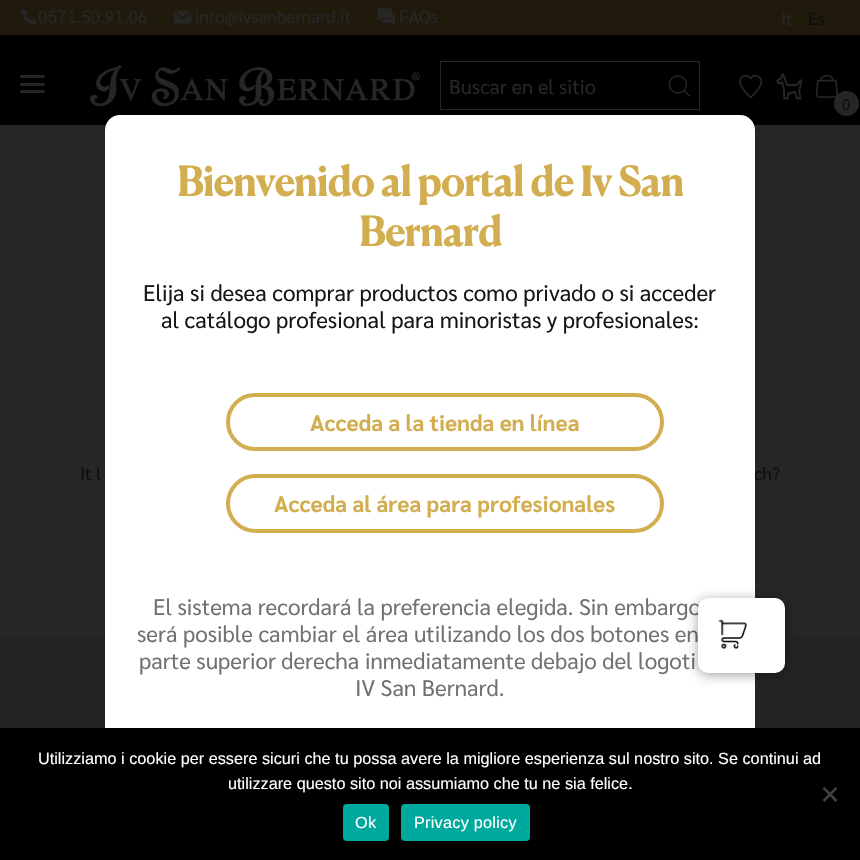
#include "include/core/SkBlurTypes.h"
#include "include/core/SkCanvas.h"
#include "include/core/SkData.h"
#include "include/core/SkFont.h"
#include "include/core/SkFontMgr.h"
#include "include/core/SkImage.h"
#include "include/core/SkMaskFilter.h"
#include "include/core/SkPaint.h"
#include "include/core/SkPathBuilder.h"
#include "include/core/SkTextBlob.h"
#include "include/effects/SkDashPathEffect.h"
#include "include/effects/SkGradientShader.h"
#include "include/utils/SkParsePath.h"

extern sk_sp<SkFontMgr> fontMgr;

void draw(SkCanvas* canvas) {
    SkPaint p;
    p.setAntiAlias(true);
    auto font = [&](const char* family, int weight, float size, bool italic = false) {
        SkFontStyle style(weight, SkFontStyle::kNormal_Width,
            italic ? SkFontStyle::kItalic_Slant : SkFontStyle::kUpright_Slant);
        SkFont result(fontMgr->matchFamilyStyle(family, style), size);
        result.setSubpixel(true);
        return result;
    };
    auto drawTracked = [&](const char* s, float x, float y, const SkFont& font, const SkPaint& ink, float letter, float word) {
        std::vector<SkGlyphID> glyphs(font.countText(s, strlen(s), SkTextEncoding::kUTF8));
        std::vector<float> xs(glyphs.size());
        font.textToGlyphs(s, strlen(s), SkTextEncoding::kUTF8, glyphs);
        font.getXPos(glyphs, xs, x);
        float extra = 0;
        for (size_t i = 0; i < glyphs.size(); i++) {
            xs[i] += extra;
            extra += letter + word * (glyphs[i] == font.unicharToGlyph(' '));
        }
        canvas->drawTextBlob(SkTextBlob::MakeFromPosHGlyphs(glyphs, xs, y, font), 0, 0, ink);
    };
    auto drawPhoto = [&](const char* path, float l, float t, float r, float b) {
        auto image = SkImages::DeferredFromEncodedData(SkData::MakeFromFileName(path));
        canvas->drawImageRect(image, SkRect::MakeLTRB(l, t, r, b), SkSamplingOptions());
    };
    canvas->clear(0xFF262626);
    p.setColor(0xFF000000);
    canvas->drawRect(SkRect::MakeLTRB(0, 35, 860, 125), p);
    p.setColor(0xFF201A0C);
    canvas->drawRect(SkRect::MakeLTRB(0, 0, 860, 35), p);
    drawPhoto("media/1.png", 21, 9, 37, 25);
    auto font1 = font("Sarabun", 400, 17.5f);
    p.setColor(0xFF262626);
    canvas->drawString("0571.50.91.06", 38, 23, font1, p);
    drawPhoto("media/2.png", 173, 10, 192, 24);
    canvas->drawString("info@ivsanbernard.it", 195, 23, font1, p);
    drawPhoto("media/3.png", 377, 8, 395, 26);
    canvas->drawString("FAQs", 399, 23, font1, p);
    canvas->drawString("It", 781, 25, font1, p);
    p.setColor(0xFF0D0D0D);
    canvas->drawString("Es", 808, 25, font1, p);
    p.setColor(0xFF262626);
    canvas->drawRoundRect(SkRect::MakeLTRB(20, 83, 45, 86), 1.5f, 1.5f, p);
    canvas->drawRoundRect(SkRect::MakeLTRB(20, 75, 45, 78), 1.5f, 1.5f, p);
    canvas->drawRoundRect(SkRect::MakeLTRB(20, 90, 45, 93), 1.5f, 1.5f, p);
    drawPhoto("media/4.png", 90, 65, 420, 107);
    p.setStyle(SkPaint::kStroke_Style);
    p.setStrokeWidth(1);
    canvas->drawRect(SkRect::MakeLTRB(440.5f, 61.5f, 699.5f, 109.5f), p);
    auto font2 = font("Sarabun", 400, 20);
    p.setStyle(SkPaint::kFill_Style);
    canvas->drawString("Buscar en el sitio", 449, 94, font2, p);
    drawPhoto("media/5.png", 668, 75, 691, 97);
    drawPhoto("media/6.png", 739, 74, 763, 99);
    drawPhoto("media/7.png", 776, 73, 803, 100);
    drawPhoto("media/8.png", 815, 75, 838, 98);
    canvas->drawCircle(846.5f, 103.5f, 12.5f, p);
    auto font3 = font("Sarabun", 400, 15);
    p.setColor(0xFF0D0D0D);
    canvas->drawString("0", 842, 110, font3, p);
    canvas->drawString("It l", 80, 480, font1, p);
    canvas->drawString("ch?", 754, 480, font1, p);
    p.setColor(0xFF242423);
    canvas->drawRect(SkRect::MakeLTRB(0, 636, 860, 728), p);
    p.setColor(0xFFFFFFFF);
    canvas->drawRoundRect(SkRect::MakeLTRB(105, 115, 755, 746), 15, 15, p);
    auto font4 = font("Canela", 700, 40);
    p.setColor(0xFFD3AE50);
    canvas->drawString("Bienvenido al portal de Iv San", 177, 196, font4, p);
    canvas->drawString("Bernard", 359, 246, font4, p);
    auto font5 = font("Sarabun", 400, 22.5f);
    p.setColor(0xFF151515);
    canvas->drawString("Elija si desea comprar productos como privado o si acceder", 143, 301, font5, p);
    canvas->drawString("al catálogo profesional para minoristas y profesionales:", 161, 328, font5, p);
    p.setStyle(SkPaint::kStroke_Style);
    p.setStrokeWidth(4);
    p.setColor(0xFFD3AE50);
    canvas->drawRoundRect(SkRect::MakeLTRB(228, 395, 662, 449), 27, 27, p);
    auto font6 = font("Sarabun", 700, 22.5f);
    p.setStyle(SkPaint::kFill_Style);
    canvas->drawString("Acceda a la tienda en línea", 310, 431, font6, p);
    p.setStyle(SkPaint::kStroke_Style);
    canvas->drawRoundRect(SkRect::MakeLTRB(228, 476, 662, 531), 27.5f, 27.5f, p);
    p.setStyle(SkPaint::kFill_Style);
    canvas->drawString("Acceda al área para profesionales", 274, 512, font6, p);
    p.setColor(0xFF717171);
    {
        const struct { const char* s; float x, y; } items[] = {
            {"El sistema recordará la preferencia elegida. Sin embargo", 153, 615},
            {"será posible cambiar el área utilizando los dos botones en", 137, 642},
            {"parte superior derecha inmediatamente debajo del logoti", 139, 669},
            {"IV San Bernard.", 355, 696},
        };
        for (auto [s, x, y] : items) {
            canvas->drawString(s, x, y, font5, p);
        }
    }
    p.setColor(0x5E000000);
    p.setMaskFilter(SkMaskFilter::MakeBlur(kNormal_SkBlurStyle, 6));
    canvas->drawRoundRect(SkRect::MakeLTRB(698, 600, 785, 675), 10, 10, p);
    p.setMaskFilter(nullptr);
    p.setColor(0xFFFFFFFF);
    canvas->drawRoundRect(SkRect::MakeLTRB(698, 598, 785, 673), 10, 10, p);
    drawPhoto("media/9.png", 718, 619, 747, 649);
    p.setColor(0xFF000000);
    canvas->drawRect(SkRect::MakeLTRB(0, 728, 860, 860), p);
    auto font7 = font("Liberation Sans", 400, 16.25f);
    p.setColor(0xFFFFFFFF);
    canvas->drawString("Utilizziamo i cookie per essere sicuri che tu possa avere la migliore esperienza sul nostro sito. Se continui ad", 38, 764, font7, p);
    canvas->drawString("utilizzare questo sito noi assumiamo che tu ne sia felice.", 228, 789, font7, p);
    p.setColor(0xFF404040);
    canvas->drawPath(SkPathBuilder().moveTo(835.5f, 787).lineTo(837.5f, 788.5f).lineTo(824.5f, 802).lineTo(822.5f, 800).close().detach(), p);
    canvas->drawPath(SkPathBuilder().moveTo(822.5f, 788.5f).lineTo(824.5f, 787).lineTo(837.5f, 800).lineTo(835.5f, 802).close().detach(), p);
    p.setColor(0xFF00A99D);
    canvas->drawRoundRect(SkRect::MakeLTRB(343, 804, 389, 841), 4, 4, p);
    p.setColor(0xFFFFFFFF);
    drawTracked("Ok", 355, 828, font7, p, 0.25f, 0);
    p.setColor(0xFF00A99D);
    canvas->drawRoundRect(SkRect::MakeLTRB(401, 804, 530, 841), 4, 4, p);
    p.setColor(0xFFFFFFFF);
    drawTracked("Privacy policy", 414, 828, font7, p, 0.25f, 0);
}
